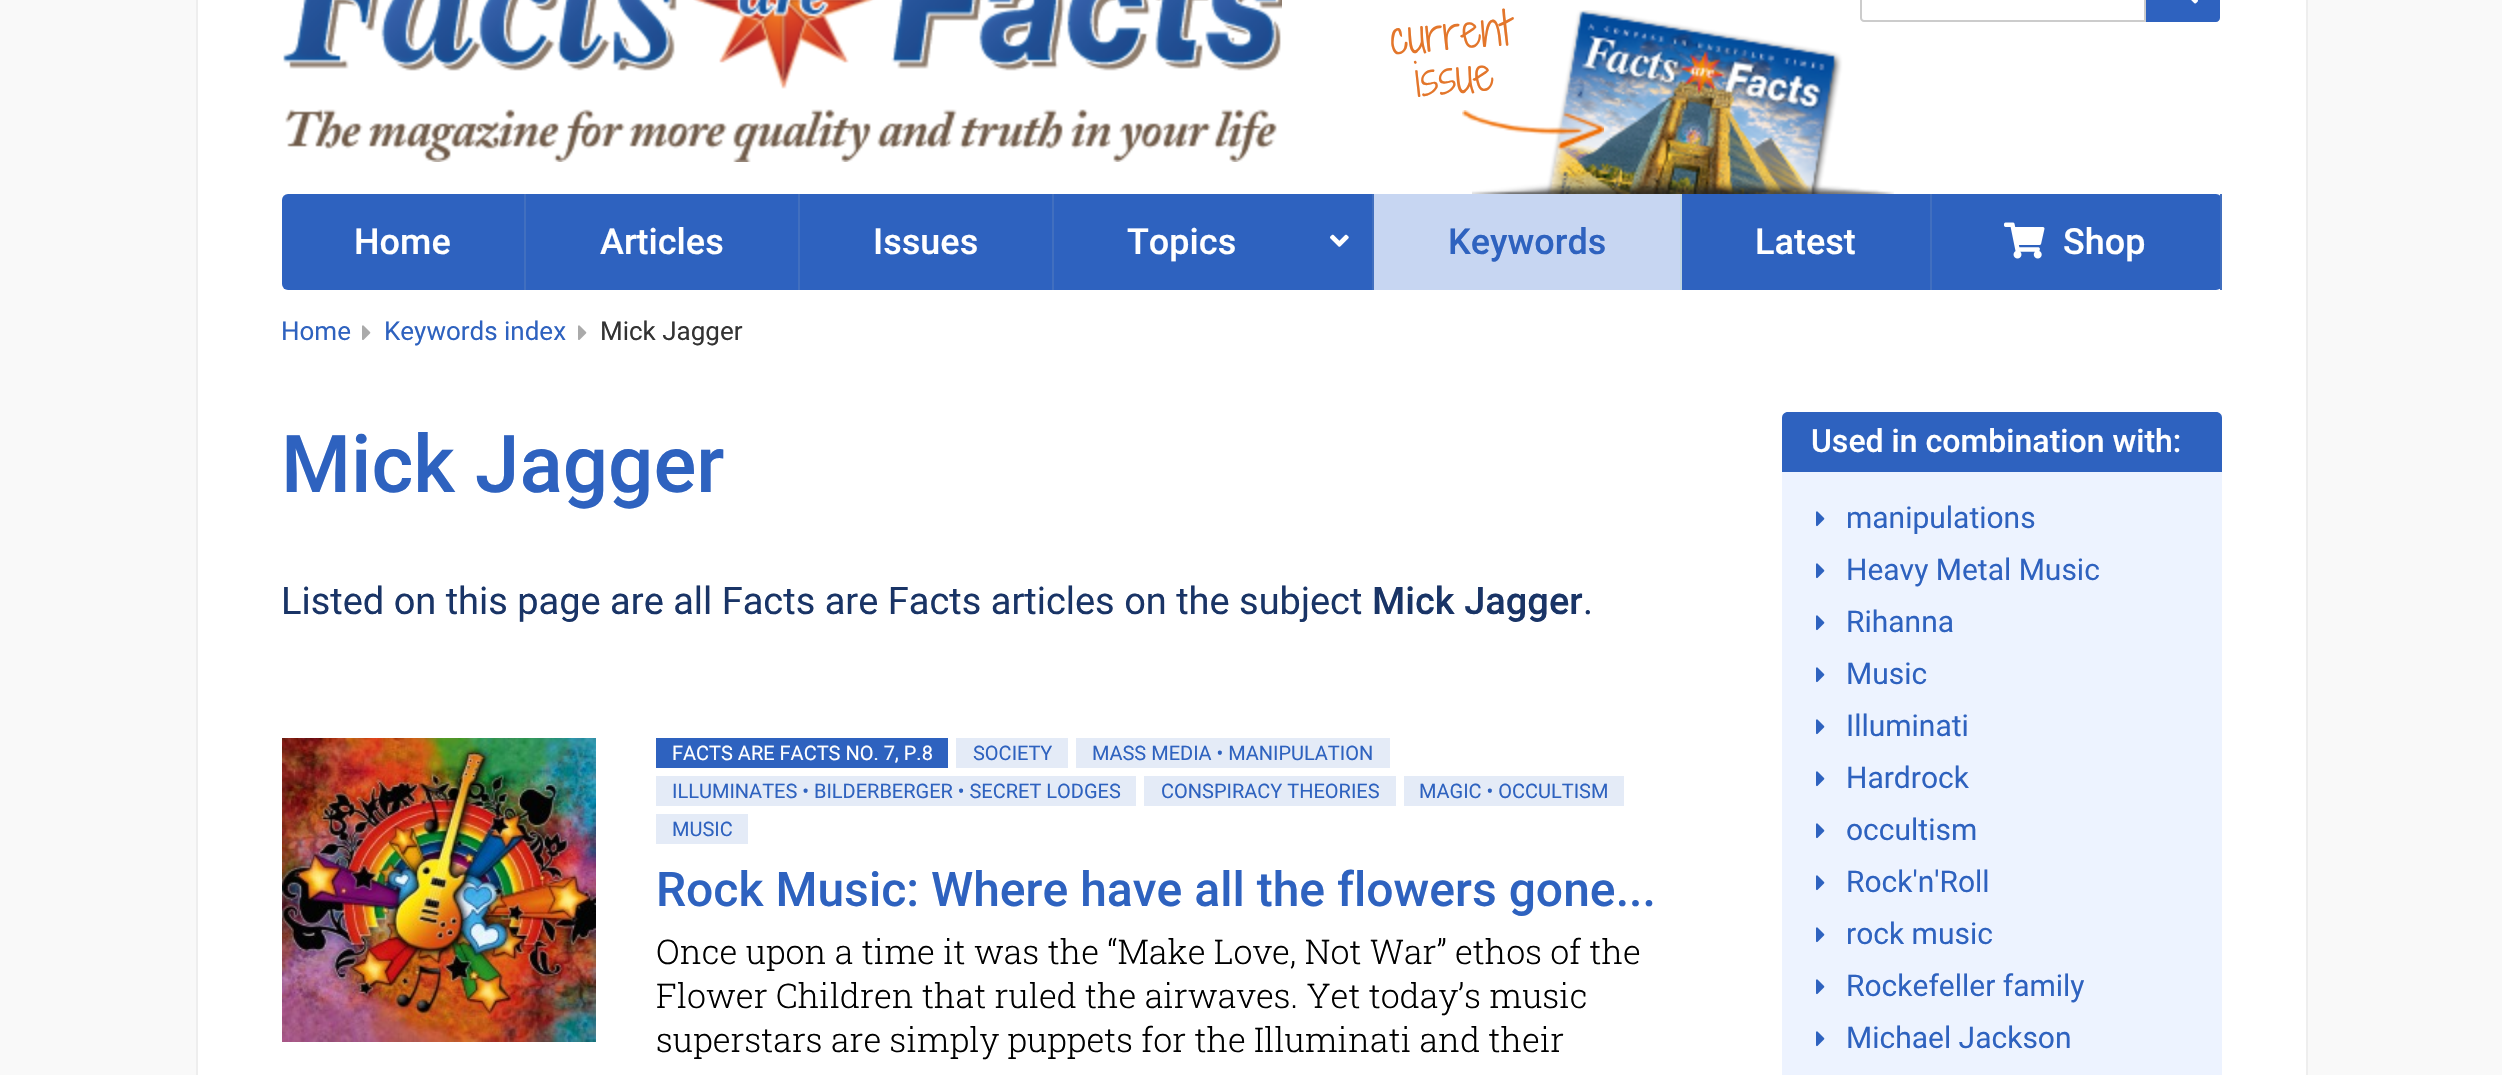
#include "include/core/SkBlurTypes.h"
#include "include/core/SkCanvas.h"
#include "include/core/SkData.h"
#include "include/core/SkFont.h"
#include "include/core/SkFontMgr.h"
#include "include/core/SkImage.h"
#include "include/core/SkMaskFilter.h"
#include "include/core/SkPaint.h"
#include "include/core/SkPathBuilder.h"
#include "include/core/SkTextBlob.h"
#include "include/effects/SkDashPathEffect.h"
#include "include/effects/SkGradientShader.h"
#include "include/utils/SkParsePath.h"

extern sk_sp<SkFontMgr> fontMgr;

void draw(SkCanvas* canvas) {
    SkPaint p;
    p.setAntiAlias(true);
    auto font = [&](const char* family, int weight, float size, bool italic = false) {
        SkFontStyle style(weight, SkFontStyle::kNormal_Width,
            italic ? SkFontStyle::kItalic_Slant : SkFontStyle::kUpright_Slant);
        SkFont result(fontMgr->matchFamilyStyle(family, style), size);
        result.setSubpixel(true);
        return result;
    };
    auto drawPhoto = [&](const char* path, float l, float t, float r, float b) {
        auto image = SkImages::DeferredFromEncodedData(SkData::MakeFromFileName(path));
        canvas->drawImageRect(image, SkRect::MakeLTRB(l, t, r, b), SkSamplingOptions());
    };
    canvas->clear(0xFFF9F9F9);
    {
        const struct { float l, t, r, b; SkColor color; } items[] = {
            {198, 0, 2306, 1075, 0xFFFFFFFF},
            {2306, 0, 2308, 1075, 0xFFEEEEEE},
            {196, 0, 198, 1075, 0xFFEEEEEE},
        };
        for (auto [l, t, r, b, color] : items) {
            p.setColor(color);
            canvas->drawRect(SkRect::MakeLTRB(l, t, r, b), p);
        }
    }
    drawPhoto("media/1.png", 283, 0, 1282, 162);
    auto font1 = font("Shadows Into Light Two", 300, 44);
    p.setColor(0xFFE3762B);
    canvas->save();
    canvas->rotate(-5, 1391, 55);
    canvas->drawString("current", 1391, 55, font1, p);
    canvas->restore();
    canvas->save();
    canvas->rotate(-5, 1416, 97);
    canvas->drawString("issue", 1416, 97, font1, p);
    canvas->restore();
    p.setStyle(SkPaint::kStroke_Style);
    p.setStrokeWidth(2);
    p.setColor(0xFFCCCCCC);
    canvas->drawPath(SkPathBuilder().moveTo(1864, -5).lineTo(2145, -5).lineTo(2145, 21).lineTo(1864, 21).cubicTo(1862.5f, 21, 1861, 19.5f, 1861, 18).lineTo(1861, -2).cubicTo(1861, -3.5f, 1862.5f, -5, 1864, -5).close().detach(), p);
    drawPhoto("media/2.png", 1472, 10, 1894, 194);
    drawPhoto("media/3.png", 1462, 110, 1604, 150);
    p.setStyle(SkPaint::kFill_Style);
    p.setColor(0xFF2E62BF);
    canvas->drawPath(SkPathBuilder().moveTo(2146, -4).lineTo(2216, -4).cubicTo(2218, -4, 2220, -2, 2220, 0).lineTo(2220, 18).cubicTo(2220, 20, 2218, 22, 2216, 22).lineTo(2146, 22).close().detach(), p);
    drawPhoto("media/4.png", 2191, 0, 2198, 4);
    canvas->drawRoundRect(SkRect::MakeLTRB(282, 194, 2222, 290), 6, 6, p);
    p.setColor(0xFF416FBF);
    canvas->drawRect(SkRect::MakeLTRB(524, 194, 526, 290), p);
    auto font2 = font("Roboto", 500, 36);
    p.setColor(0xFFFFFFFF);
    canvas->drawString("Home", 354, 254, font2, p);
    p.setColor(0xFF416FBF);
    canvas->drawRect(SkRect::MakeLTRB(798, 194, 800, 290), p);
    p.setColor(0xFFFFFFFF);
    canvas->drawString("Articles", 600, 254, font2, p);
    p.setColor(0xFF416FBF);
    canvas->drawRect(SkRect::MakeLTRB(1052, 194, 1054, 290), p);
    p.setColor(0xFFFFFFFF);
    canvas->drawString("Issues", 873, 254, font2, p);
    p.setColor(0xFF416FBF);
    canvas->drawRect(SkRect::MakeLTRB(1372, 194, 1374, 290), p);
    p.setColor(0xFFFFFFFF);
    canvas->drawString("Topics", 1127, 254, font2, p);
    drawPhoto("media/5.png", 1330, 234, 1349, 247);
    p.setColor(0xFFC7D6F2);
    canvas->drawRect(SkRect::MakeLTRB(1374, 194, 1680, 290), p);
    p.setColor(0xFFBDD3E2);
    canvas->drawRect(SkRect::MakeLTRB(1680, 194, 1682, 290), p);
    p.setColor(0xFF2E62BF);
    canvas->drawString("Keywords", 1448, 254, font2, p);
    p.setColor(0xFF416FBF);
    canvas->drawRect(SkRect::MakeLTRB(1930, 194, 1932, 290), p);
    p.setColor(0xFFFFFFFF);
    canvas->drawString("Latest", 1755, 254, font2, p);
    p.setColor(0xFF416FBF);
    canvas->drawRect(SkRect::MakeLTRB(2220, 194, 2222, 290), p);
    drawPhoto("media/6.png", 2004, 222, 2045, 259);
    p.setColor(0xFFFFFFFF);
    canvas->drawString("Shop", 2063, 254, font2, p);
    auto font3 = font("Roboto", 400, 26);
    p.setColor(0xFF2E62BF);
    canvas->drawString("Home", 281, 340, font3, p);
    drawPhoto("media/7.png", 362, 325, 371, 340);
    canvas->drawString("Keywords index", 384, 340, font3, p);
    drawPhoto("media/7.png", 578, 325, 587, 340);
    p.setColor(0xFF333333);
    canvas->drawString("Mick Jagger", 600, 340, font3, p);
    auto font4 = font("Roboto", 500, 80);
    p.setColor(0xFF2E62BF);
    canvas->drawString("Mick Jagger", 281, 492, font4, p);
    auto font5 = font("Roboto", 400, 38);
    p.setColor(0xFF193466);
    canvas->drawString("Listed on this page are all Facts are Facts articles on the subject", 281, 614, font5, p);
    auto font6 = font("Roboto", 500, 38);
    canvas->drawString("Mick Jagger", 1372, 614, font6, p);
    canvas->drawString(".", 1583, 614, font5, p);
    drawPhoto("media/8.png", 282, 738, 596, 1042);
    p.setColor(0xFF2E62BF);
    canvas->drawRect(SkRect::MakeLTRB(656, 738, 948, 768), p);
    auto font7 = font("Roboto", 400, 20);
    p.setColor(0xFFFFFFFF);
    canvas->drawString("FACTS ARE FACTS NO. 7, P.8", 672, 760, font7, p);
    p.setColor(0xFFE4EBF7);
    canvas->drawRect(SkRect::MakeLTRB(956, 738, 1068, 768), p);
    p.setColor(0xFF2E62BF);
    canvas->drawString("SOCIETY", 973, 760, font7, p);
    p.setColor(0xFFE4EBF7);
    canvas->drawRect(SkRect::MakeLTRB(1076, 738, 1390, 768), p);
    p.setColor(0xFF2E62BF);
    canvas->drawString("MASS MEDIA • MANIPULATION", 1092, 760, font7, p);
    p.setColor(0xFFE4EBF7);
    canvas->drawRect(SkRect::MakeLTRB(656, 776, 1136, 806), p);
    p.setColor(0xFF2E62BF);
    canvas->drawString("ILLUMINATES • BILDERBERGER • SECRET LODGES", 672, 798, font7, p);
    p.setColor(0xFFE4EBF7);
    canvas->drawRect(SkRect::MakeLTRB(1144, 776, 1396, 806), p);
    p.setColor(0xFF2E62BF);
    canvas->drawString("CONSPIRACY THEORIES", 1161, 798, font7, p);
    p.setColor(0xFFE4EBF7);
    canvas->drawRect(SkRect::MakeLTRB(1404, 776, 1624, 806), p);
    p.setColor(0xFF2E62BF);
    canvas->drawString("MAGIC • OCCULTISM", 1419, 798, font7, p);
    p.setColor(0xFFE4EBF7);
    canvas->drawRect(SkRect::MakeLTRB(656, 814, 748, 844), p);
    p.setColor(0xFF2E62BF);
    canvas->drawString("MUSIC", 672, 836, font7, p);
    auto font8 = font("Roboto", 500, 48);
    canvas->drawString("Rock Music: Where have all the flowers gone...", 656, 906, font8, p);
    auto font9 = font("Roboto Slab", 300, 34);
    p.setColor(0xFF000000);
    {
        const struct { const char* s; float x, y; } items[] = {
            {"Once upon a time it was the “Make Love, Not War” ethos of the", 656, 964},
            {"Flower Children that ruled the airwaves. Yet today’s music", 656, 1008},
            {"superstars are simply puppets for the Illuminati and their", 656, 1052},
        };
        for (auto [s, x, y] : items) {
            canvas->drawString(s, x, y, font9, p);
        }
    }
    p.setColor(0xFFEDF3FF);
    canvas->drawPath(SkPathBuilder().moveTo(1788, 412).lineTo(2216, 412).cubicTo(2219.5f, 412, 2222, 414.5f, 2222, 418).lineTo(2222, 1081).lineTo(1782, 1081).lineTo(1782, 418).cubicTo(1782, 414.5f, 1784.5f, 412, 1788, 412).close().detach(), p);
    p.setColor(0xFF2E62BF);
    canvas->drawPath(SkPathBuilder().moveTo(1788, 412).lineTo(2216, 412).cubicTo(2219.5f, 412, 2222, 414.5f, 2222, 418).lineTo(2222, 468).lineTo(1782, 468).lineTo(1782, 418).cubicTo(1782, 414.5f, 1784.5f, 412, 1788, 412).close().detach(), p);
    auto font10 = font("Roboto", 500, 32);
    p.setColor(0xFFFFFFFF);
    canvas->drawString("Used in combination with:", 1811, 452, font10, p);
    p.setColor(0xFF2E62BF);
    canvas->drawRect(SkRect::MakeLTRB(1782, 468, 2222, 472), p);
    drawPhoto("media/9.png", 1816, 511, 1825, 527);
    auto font11 = font("Roboto", 400, 30);
    canvas->drawString("manipulations", 1846, 528, font11, p);
    drawPhoto("media/9.png", 1816, 563, 1825, 579);
    canvas->drawString("Heavy Metal Music", 1846, 580, font11, p);
    drawPhoto("media/9.png", 1816, 615, 1825, 631);
    canvas->drawString("Rihanna", 1846, 632, font11, p);
    drawPhoto("media/9.png", 1816, 667, 1825, 683);
    canvas->drawString("Music", 1846, 684, font11, p);
    drawPhoto("media/9.png", 1816, 719, 1825, 735);
    canvas->drawString("Illuminati", 1846, 736, font11, p);
    drawPhoto("media/9.png", 1816, 771, 1825, 787);
    canvas->drawString("Hardrock", 1846, 788, font11, p);
    drawPhoto("media/9.png", 1816, 823, 1825, 839);
    canvas->drawString("occultism", 1846, 840, font11, p);
    drawPhoto("media/9.png", 1816, 875, 1825, 891);
    canvas->drawString("Rock'n'Roll", 1846, 892, font11, p);
    drawPhoto("media/9.png", 1816, 927, 1825, 943);
    canvas->drawString("rock music", 1846, 944, font11, p);
    drawPhoto("media/9.png", 1816, 979, 1825, 995);
    canvas->drawString("Rockefeller family", 1846, 996, font11, p);
    drawPhoto("media/9.png", 1816, 1031, 1825, 1047);
    canvas->drawString("Michael Jackson", 1846, 1048, font11, p);
}
